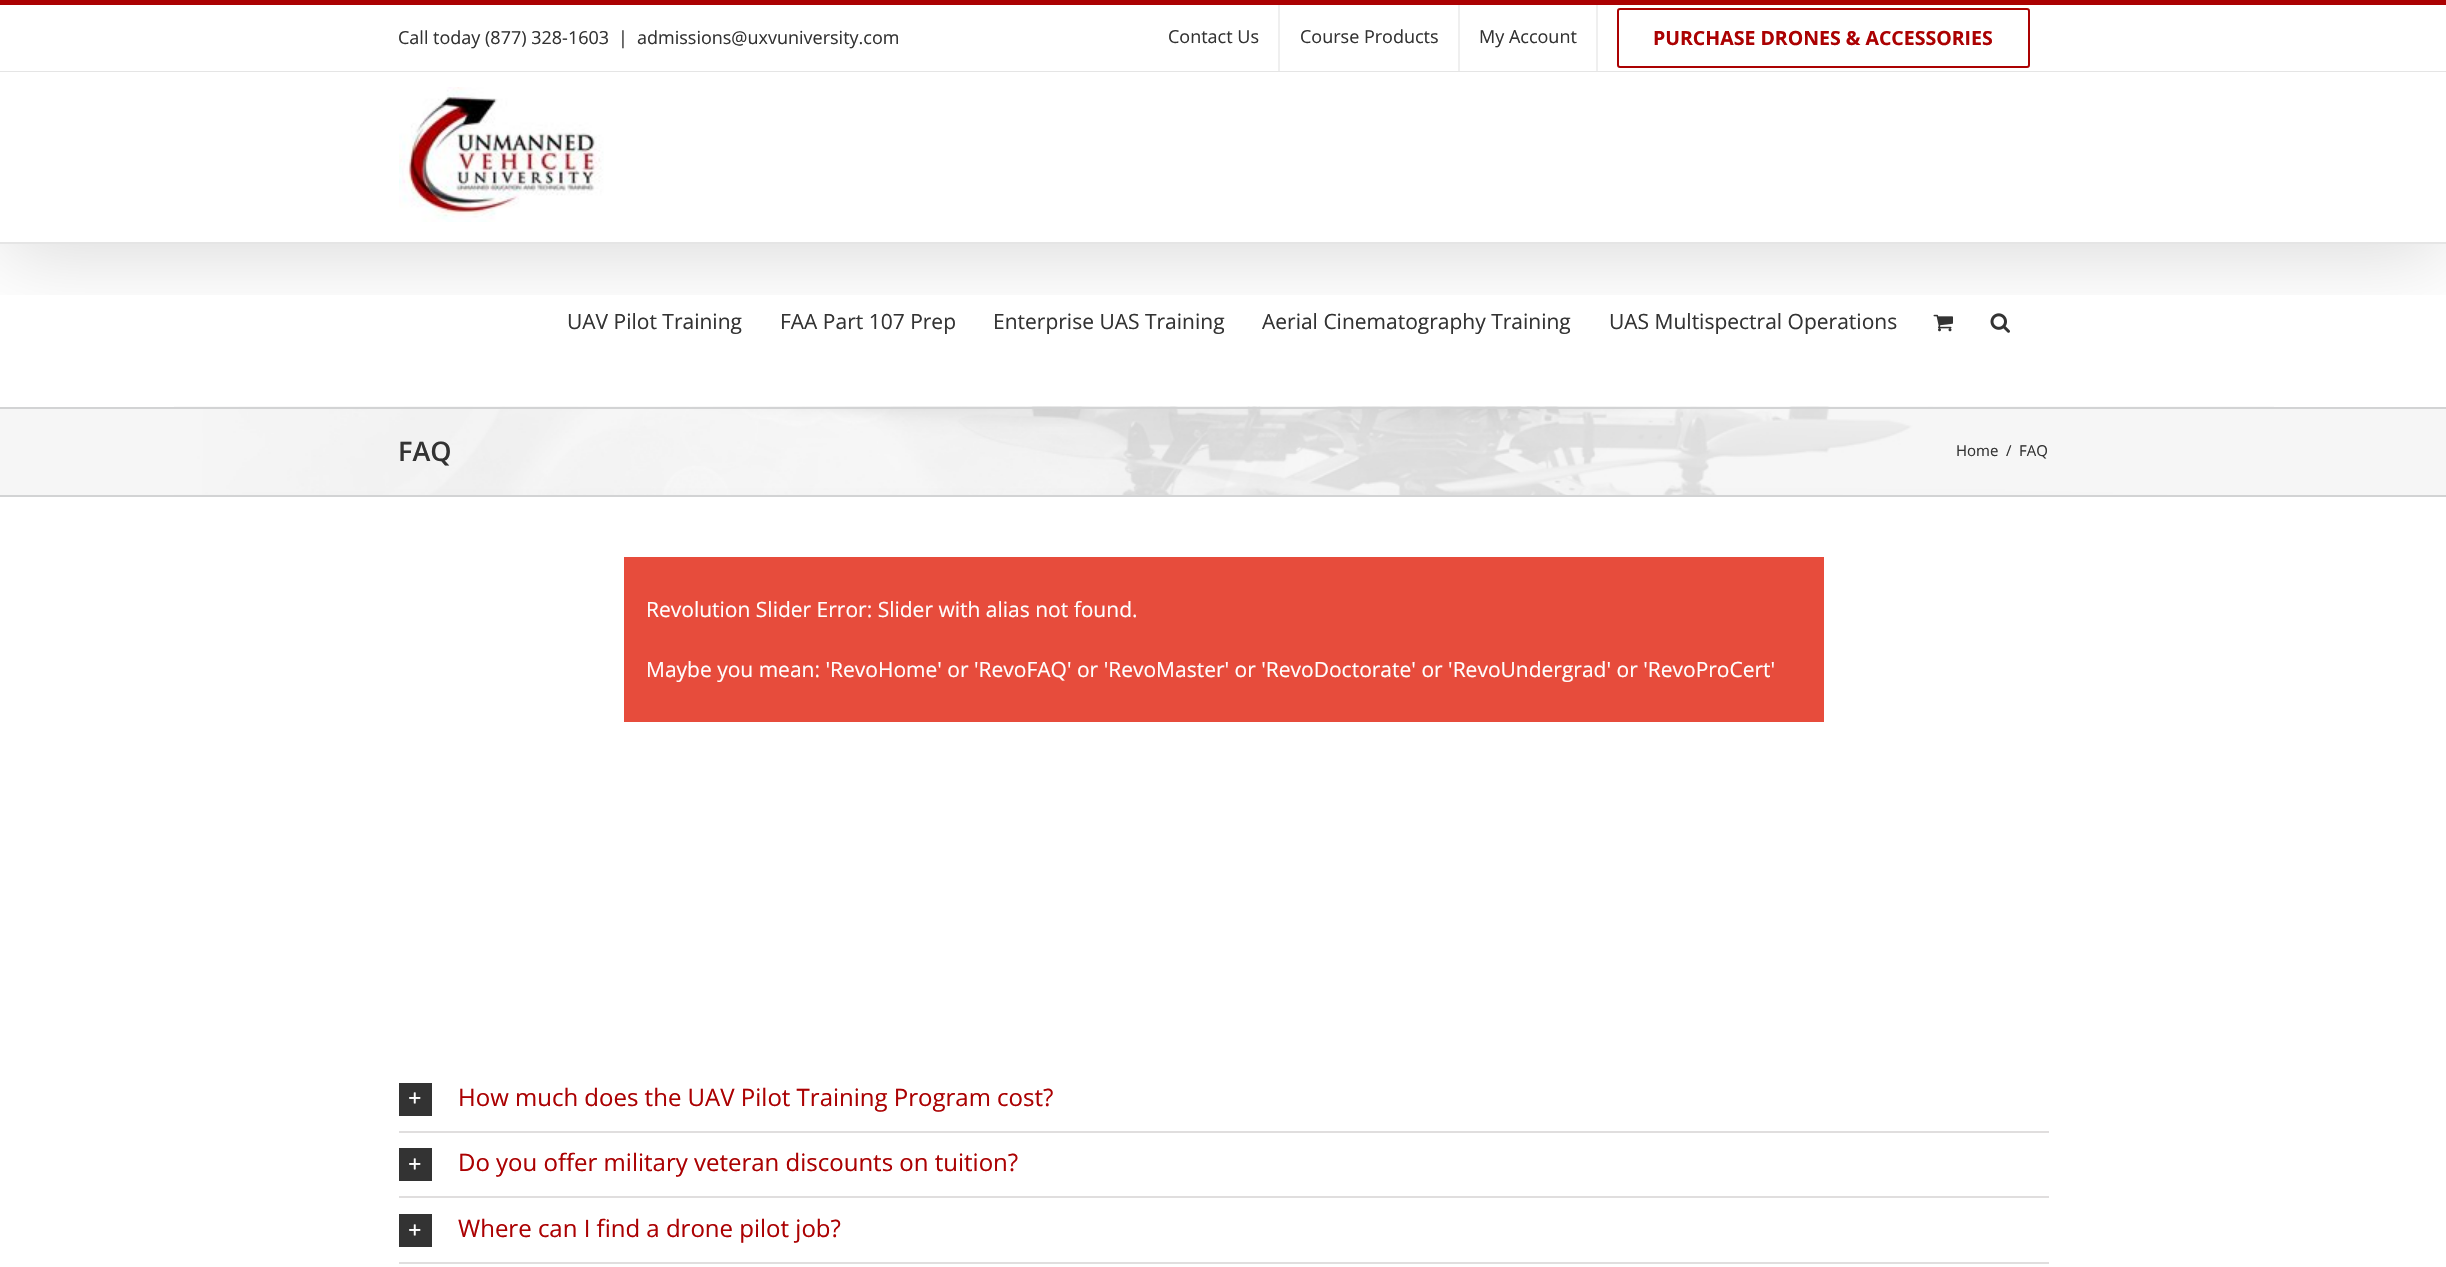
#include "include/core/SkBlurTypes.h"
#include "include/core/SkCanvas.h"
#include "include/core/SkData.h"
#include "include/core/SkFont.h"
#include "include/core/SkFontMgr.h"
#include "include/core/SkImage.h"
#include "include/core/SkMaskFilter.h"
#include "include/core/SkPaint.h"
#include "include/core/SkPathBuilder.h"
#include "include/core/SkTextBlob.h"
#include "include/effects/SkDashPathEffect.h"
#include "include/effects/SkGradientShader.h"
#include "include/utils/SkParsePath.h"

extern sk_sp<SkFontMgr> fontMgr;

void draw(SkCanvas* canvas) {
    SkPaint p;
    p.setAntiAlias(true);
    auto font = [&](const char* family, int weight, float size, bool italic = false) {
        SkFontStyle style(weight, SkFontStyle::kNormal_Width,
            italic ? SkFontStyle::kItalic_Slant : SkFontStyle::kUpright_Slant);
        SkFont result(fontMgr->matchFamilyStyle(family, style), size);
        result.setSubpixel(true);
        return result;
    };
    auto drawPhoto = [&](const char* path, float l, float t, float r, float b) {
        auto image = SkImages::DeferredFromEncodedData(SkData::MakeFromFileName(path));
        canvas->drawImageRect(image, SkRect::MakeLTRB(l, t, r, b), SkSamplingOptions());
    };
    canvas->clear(0xFFFFFFFF);
    canvas->save();
    canvas->clipRect(SkRect::MakeLTRB(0, 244, 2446, 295));
    p.setColor(0x24000000);
    p.setMaskFilter(SkMaskFilter::MakeBlur(kNormal_SkBlurStyle, 37.5f));
    canvas->drawRect(SkRect::MakeLTRB(3, 18, 2444, 255), p);
    p.setMaskFilter(nullptr);
    canvas->restore();
    p.setColor(0xFFAB0102);
    canvas->drawRect(SkRect::MakeLTRB(0, 0, 2446, 5), p);
    p.setColor(0xFFE5E5E5);
    canvas->drawRect(SkRect::MakeLTRB(0, 71, 2446, 72), p);
    auto font1 = font("Open Sans", 400, 18);
    p.setColor(0xFF333333);
    {
        const struct { const char* s; float x, y; } items[] = {
            {"Call today (877) 328-1603", 398, 44},
            {"|", 618, 44},
            {"admissions@uxvuniversity.com", 637, 44},
            {"Contact Us", 1168, 43},
        };
        for (auto [s, x, y] : items) {
            canvas->drawString(s, x, y, font1, p);
        }
    }
    p.setColor(0xFFEFEFEF);
    canvas->drawRect(SkRect::MakeLTRB(1278, 5, 1280, 71), p);
    p.setColor(0xFF333333);
    canvas->drawString("Course Products", 1300, 43, font1, p);
    p.setColor(0xFFEFEFEF);
    canvas->drawRect(SkRect::MakeLTRB(1458, 5, 1460, 71), p);
    p.setColor(0xFF333333);
    canvas->drawString("My Account", 1479, 43, font1, p);
    p.setColor(0xFFEFEFEF);
    canvas->drawRect(SkRect::MakeLTRB(1596, 5, 1598, 71), p);
    p.setStyle(SkPaint::kStroke_Style);
    p.setStrokeWidth(2);
    p.setColor(0xFFAB0102);
    canvas->drawRoundRect(SkRect::MakeLTRB(1618, 9, 2029, 67), 2, 2, p);
    auto font2 = font("Open Sans", 700, 19.5f);
    p.setStyle(SkPaint::kFill_Style);
    canvas->drawString("PURCHASE DRONES & ACCESSORIES", 1653, 45, font2, p);
    p.setColor(0xFFE5E5E5);
    canvas->drawRect(SkRect::MakeLTRB(0, 242, 2446, 244), p);
    drawPhoto("media/1.png", 399, 87, 604, 222);
    auto font3 = font("Open Sans", 400, 21);
    p.setColor(0xFF333333);
    {
        const struct { const char* s; float x, y; } items[] = {
            {"UAV Pilot Training", 567, 329},
            {"FAA Part 107 Prep", 780, 329},
            {"Enterprise UAS Training", 993, 329},
            {"Aerial Cinematography Training", 1262, 329},
            {"UAS Multispectral Operations", 1609, 329},
        };
        for (auto [s, x, y] : items) {
            canvas->drawString(s, x, y, font3, p);
        }
    }
    drawPhoto("media/2.png", 1933, 314, 1953, 332);
    drawPhoto("media/3.png", 1990, 313, 2010, 333);
    p.setColor(0xFFF6F6F6);
    canvas->drawRect(SkRect::MakeLTRB(0, 409, 2446, 495), p);
    drawPhoto("media/4.png", 174, 406, 2274, 495);
    p.setColor(0xFFD2D3D4);
    canvas->drawRect(SkRect::MakeLTRB(0, 407, 2446, 409), p);
    canvas->drawRect(SkRect::MakeLTRB(0, 495, 2446, 497), p);
    auto font4 = font("Open Sans", 600, 27);
    p.setColor(0xFF333333);
    canvas->drawString("FAQ", 398, 461, font4, p);
    auto font5 = font("Open Sans", 400, 15);
    {
        const struct { const char* s; float x, y; } items[] = {
            {"Home", 1956, 456},
            {"/", 2006, 456},
            {"FAQ", 2019, 456},
        };
        for (auto [s, x, y] : items) {
            canvas->drawString(s, x, y, font5, p);
        }
    }
    p.setColor(0xFFE74C3C);
    canvas->drawRect(SkRect::MakeLTRB(624, 557, 1824, 722), p);
    p.setColor(0xFFFFFFFF);
    canvas->drawString("Revolution Slider Error: Slider with alias not found.", 646, 617, font3, p);
    canvas->drawString("Maybe you mean: 'RevoHome' or 'RevoFAQ' or 'RevoMaster' or 'RevoDoctorate' or 'RevoUndergrad' or 'RevoProCert'", 646, 677, font3, p);
    p.setColor(0xFFE0DEDE);
    canvas->drawRect(SkRect::MakeLTRB(399, 1131, 2049, 1133), p);
    p.setColor(0xFF333333);
    canvas->drawRect(SkRect::MakeLTRB(399, 1083, 432, 1116), p);
    drawPhoto("media/5.png", 409, 1092, 421, 1104);
    auto font6 = font("Open Sans", 400, 24);
    p.setColor(0xFFAB0102);
    canvas->drawString("How much does the UAV Pilot Training Program cost?", 458, 1106, font6, p);
    p.setColor(0xFFE0DEDE);
    canvas->drawRect(SkRect::MakeLTRB(399, 1196, 2049, 1198), p);
    p.setColor(0xFF333333);
    canvas->drawRect(SkRect::MakeLTRB(399, 1148, 432, 1181), p);
    drawPhoto("media/5.png", 409, 1158, 421, 1170);
    p.setColor(0xFFAB0102);
    canvas->drawString("Do you offer military veteran discounts on tuition?", 458, 1171, font6, p);
    p.setColor(0xFFE0DEDE);
    canvas->drawRect(SkRect::MakeLTRB(399, 1262, 2049, 1264), p);
    p.setColor(0xFF333333);
    canvas->drawRect(SkRect::MakeLTRB(399, 1214, 432, 1247), p);
    drawPhoto("media/5.png", 409, 1224, 421, 1236);
    p.setColor(0xFFAB0102);
    canvas->drawString("Where can I find a drone pilot job?", 458, 1237, font6, p);
}
